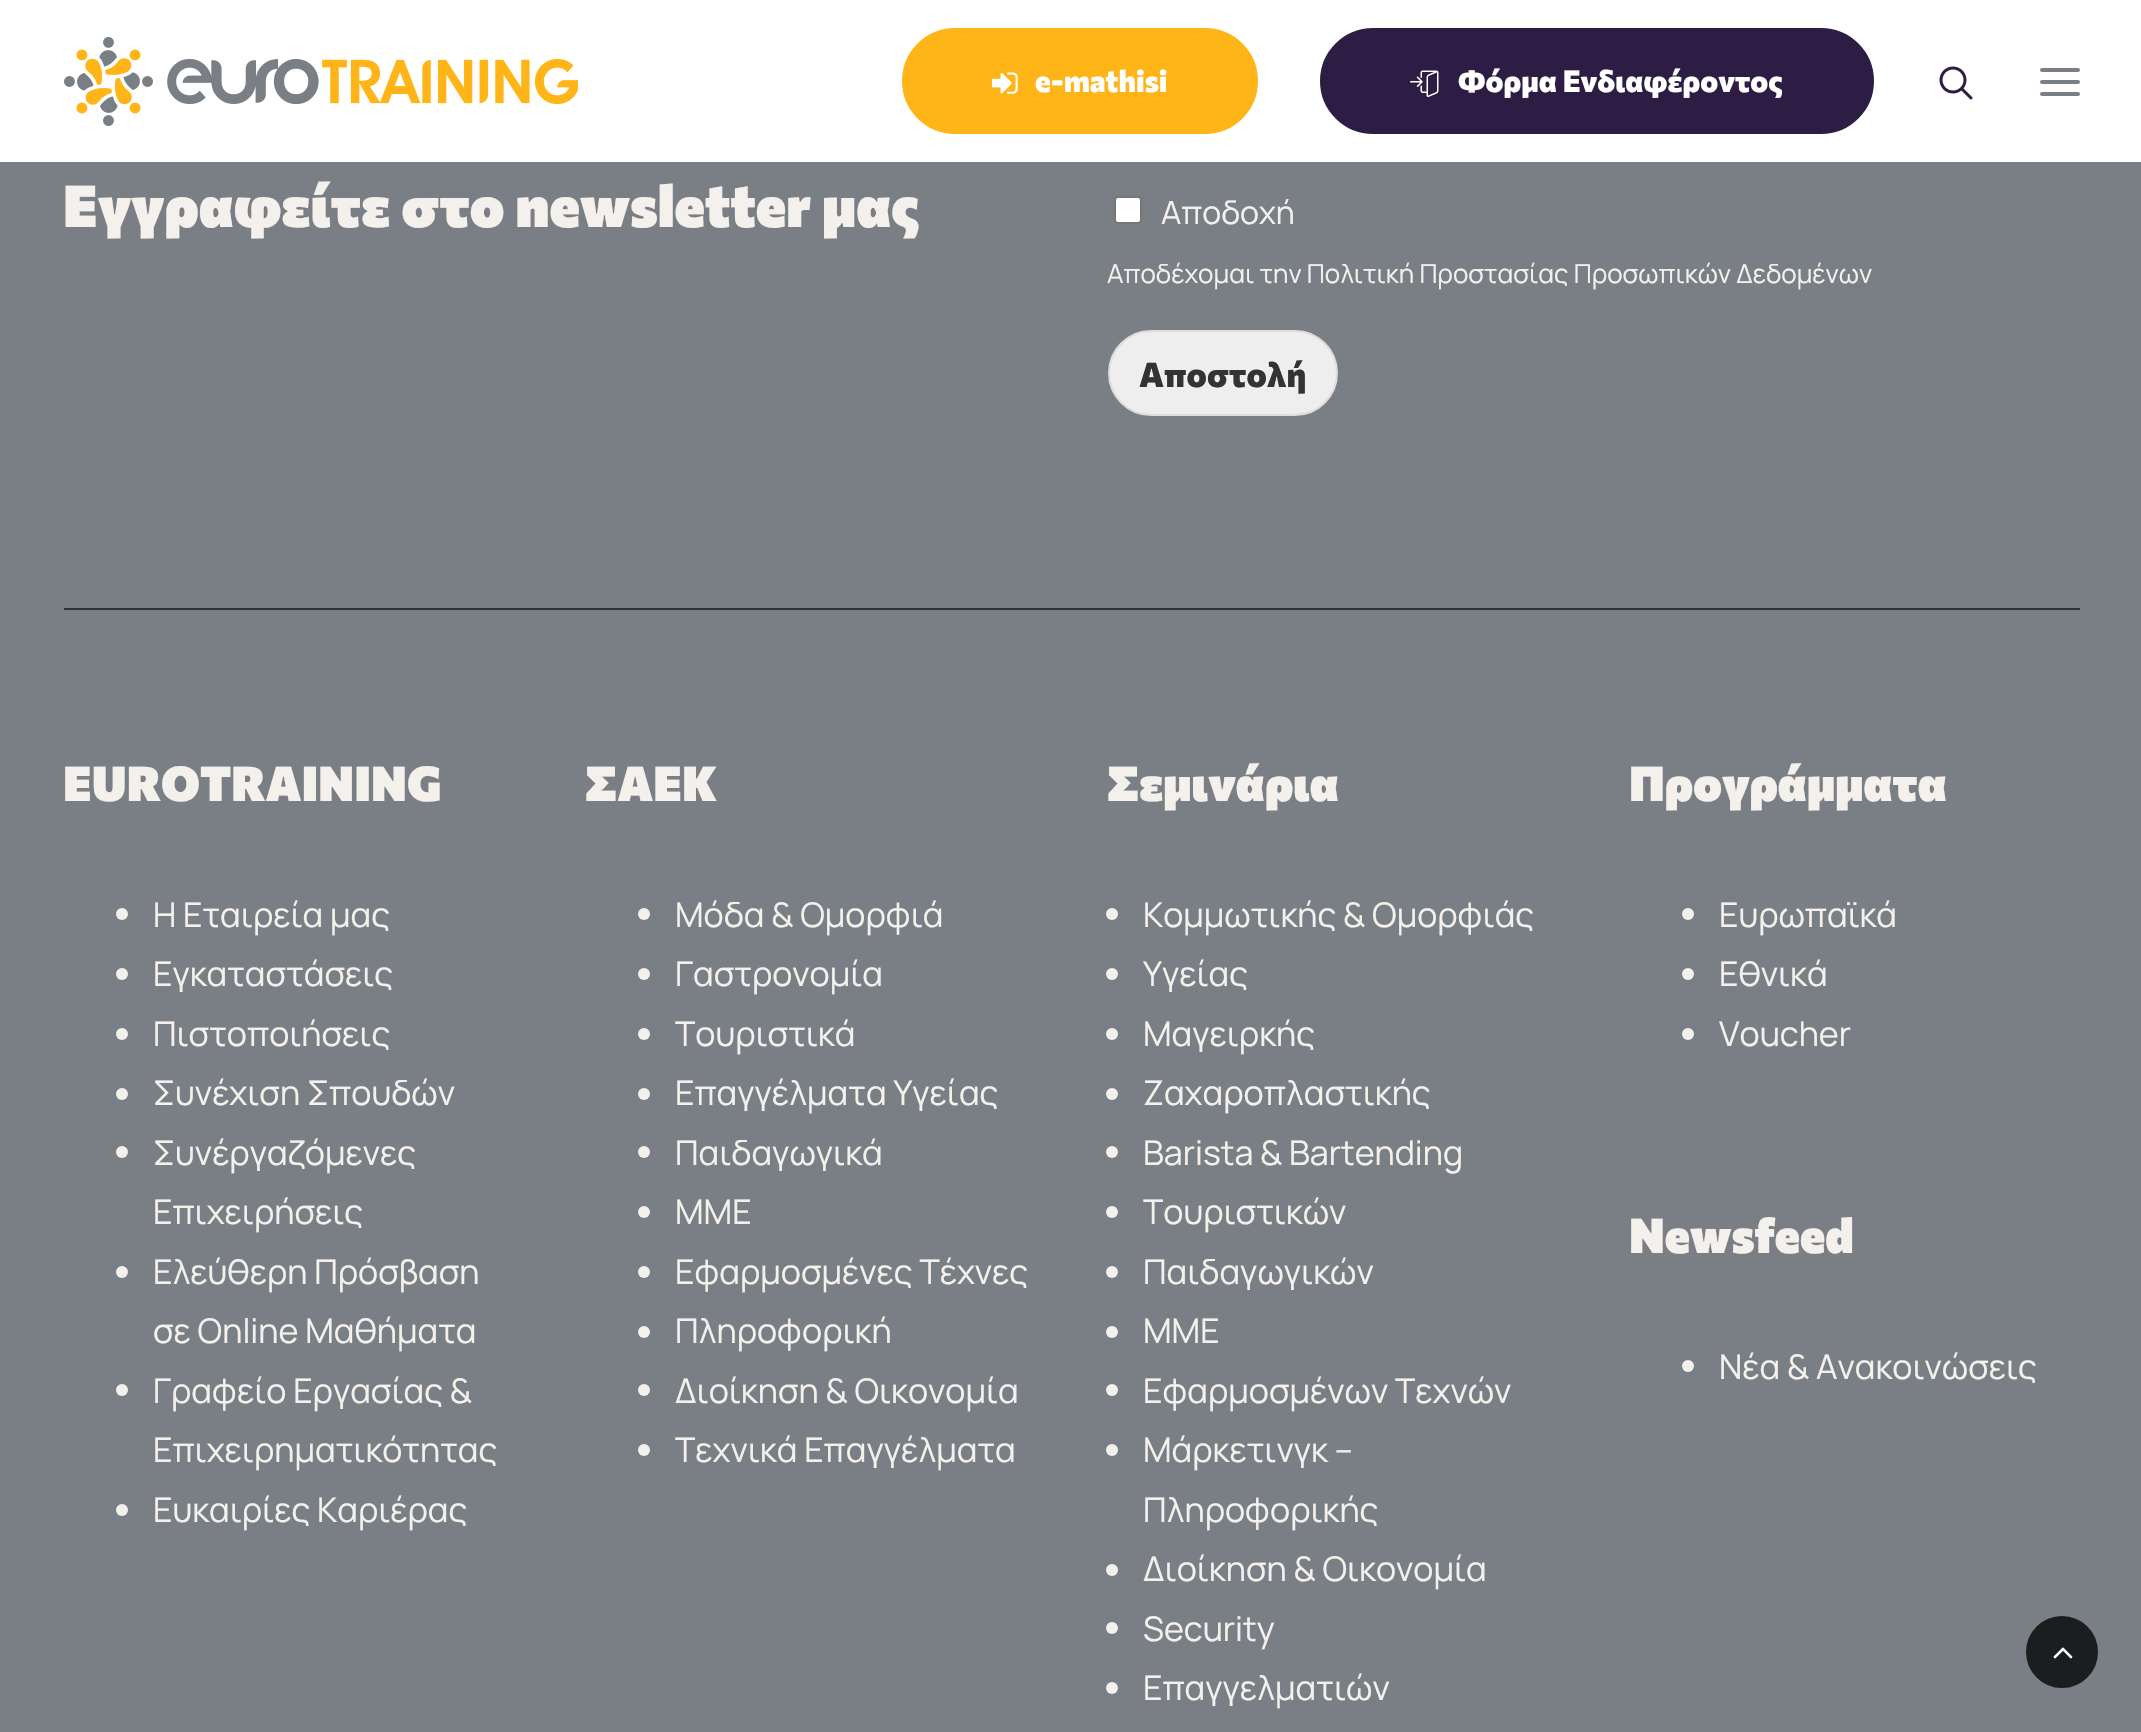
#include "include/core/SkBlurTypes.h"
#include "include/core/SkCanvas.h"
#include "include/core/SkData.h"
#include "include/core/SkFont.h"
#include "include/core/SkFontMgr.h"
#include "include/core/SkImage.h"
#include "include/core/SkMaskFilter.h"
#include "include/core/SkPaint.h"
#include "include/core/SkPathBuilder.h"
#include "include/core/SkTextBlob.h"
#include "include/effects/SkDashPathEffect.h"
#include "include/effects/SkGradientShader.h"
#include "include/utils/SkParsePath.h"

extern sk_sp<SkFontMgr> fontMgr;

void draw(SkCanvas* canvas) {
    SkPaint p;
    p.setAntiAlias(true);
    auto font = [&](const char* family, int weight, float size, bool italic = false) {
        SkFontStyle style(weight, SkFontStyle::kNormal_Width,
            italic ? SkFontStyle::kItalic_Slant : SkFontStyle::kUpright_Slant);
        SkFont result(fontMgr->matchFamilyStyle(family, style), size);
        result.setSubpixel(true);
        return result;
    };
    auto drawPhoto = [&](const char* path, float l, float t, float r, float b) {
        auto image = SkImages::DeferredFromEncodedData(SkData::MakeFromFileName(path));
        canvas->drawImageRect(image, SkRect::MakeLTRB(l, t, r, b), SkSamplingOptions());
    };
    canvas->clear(0xFF797F84);
    p.setColor(0xFFFFFFFF);
    canvas->drawRect(SkRect::MakeLTRB(0, 0, 2141, 162), p);
    drawPhoto("media/1.png", 64, 37, 578, 126);
    p.setColor(0xFFFFB517);
    canvas->drawRoundRect(SkRect::MakeLTRB(903, 29, 1257, 133), 52, 52, p);
    p.setStyle(SkPaint::kStroke_Style);
    p.setStrokeWidth(2);
    canvas->drawRoundRect(SkRect::MakeLTRB(903, 29, 1257, 133), 52, 52, p);
    drawPhoto("media/2.png", 992, 72, 1018, 94);
    auto font1 = font("Commissioner", 800, 30);
    p.setStyle(SkPaint::kFill_Style);
    p.setColor(0xFFFFFFFF);
    canvas->drawString("e-mathisi", 1035, 92, font1, p);
    p.setColor(0xFF2D1D44);
    canvas->drawRoundRect(SkRect::MakeLTRB(1321, 29, 1873, 133), 52, 52, p);
    p.setStyle(SkPaint::kStroke_Style);
    canvas->drawRoundRect(SkRect::MakeLTRB(1321, 29, 1873, 133), 52, 52, p);
    drawPhoto("media/3.png", 1410, 70, 1439, 97);
    p.setStyle(SkPaint::kFill_Style);
    p.setColor(0xFFFFFFFF);
    canvas->drawString("Φόρμα Ενδιαφέροντος", 1458, 92, font1, p);
    drawPhoto("media/4.png", 1939, 66, 1973, 100);
    p.setColor(0xFF797F84);
    canvas->drawRoundRect(SkRect::MakeLTRB(2040, 80, 2080, 84), 2, 2, p);
    canvas->drawRoundRect(SkRect::MakeLTRB(2040, 68, 2080, 72), 2, 2, p);
    canvas->drawRoundRect(SkRect::MakeLTRB(2040, 92, 2080, 96), 2, 2, p);
    auto font2 = font("Commissioner", 900, 58);
    p.setColor(0xFFF4F1EC);
    canvas->drawString("Εγγραφείτε στο newsletter μας", 63, 227, font2, p);
    p.setColor(0xFFFFFFFF);
    canvas->drawRoundRect(SkRect::MakeLTRB(1115, 197, 1141, 223), 3, 3, p);
    p.setStyle(SkPaint::kStroke_Style);
    p.setColor(0xFF767676);
    canvas->drawRoundRect(SkRect::MakeLTRB(1115, 197, 1141, 223), 3, 3, p);
    auto font3 = font("Manrope", 400, 32);
    p.setStyle(SkPaint::kFill_Style);
    p.setColor(0xFFF4F1EC);
    canvas->drawString("Αποδοχή", 1161, 224, font3, p);
    auto font4 = font("Manrope", 400, 26);
    canvas->drawString("Αποδέχομαι την Πολιτική Προστασίας Προσωπικών Δεδομένων", 1107, 283, font4, p);
    p.setColor(0xFFEEEEEE);
    canvas->drawRoundRect(SkRect::MakeLTRB(1109, 331, 1337, 415), 42, 42, p);
    p.setStyle(SkPaint::kStroke_Style);
    p.setColor(0xFFDDDDDD);
    canvas->drawRoundRect(SkRect::MakeLTRB(1109, 331, 1337, 415), 42, 42, p);
    auto font5 = font("Commissioner", 800, 34);
    p.setStyle(SkPaint::kFill_Style);
    p.setColor(0xFF333333);
    canvas->drawString("Αποστολή", 1139, 387, font5, p);
    p.setColor(0xFF303133);
    canvas->drawRect(SkRect::MakeLTRB(64, 608, 2080, 610), p);
    auto font6 = font("Commissioner", 900, 48);
    p.setColor(0xFFF4F1EC);
    canvas->drawString("EUROTRAINING", 63, 801, font6, p);
    canvas->drawCircle(122, 914, 6, p);
    auto font7 = font("Manrope", 400, 34);
    canvas->drawString("Η Εταιρεία μας", 153, 927, font7, p);
    canvas->drawCircle(122, 974, 6, p);
    canvas->drawString("Εγκαταστάσεις", 153, 986, font7, p);
    canvas->drawCircle(122, 1034, 6, p);
    canvas->drawString("Πιστοποιήσεις", 153, 1046, font7, p);
    canvas->drawCircle(122, 1094, 6, p);
    canvas->drawString("Συνέχιση Σπουδών", 153, 1105, font7, p);
    canvas->drawCircle(122, 1152, 6, p);
    canvas->drawString("Συνέργαζόμενες", 153, 1165, font7, p);
    canvas->drawString("Επιχειρήσεις", 153, 1224, font7, p);
    canvas->drawCircle(122, 1272, 6, p);
    canvas->drawString("Ελεύθερη Πρόσβαση", 153, 1284, font7, p);
    canvas->drawString("σε Online Μαθήματα", 153, 1343, font7, p);
    canvas->drawCircle(122, 1390, 6, p);
    canvas->drawString("Γραφείο Εργασίας &", 153, 1403, font7, p);
    canvas->drawString("Επιχειρηματικότητας", 153, 1462, font7, p);
    canvas->drawCircle(122, 1510, 6, p);
    canvas->drawString("Ευκαιρίες Καριέρας", 153, 1522, font7, p);
    canvas->drawString("ΣΑΕΚ", 585, 801, font6, p);
    canvas->drawCircle(644, 914, 6, p);
    canvas->drawString("Μόδα & Ομορφιά", 675, 927, font7, p);
    canvas->drawCircle(644, 974, 6, p);
    canvas->drawString("Γαστρονομία", 675, 986, font7, p);
    canvas->drawCircle(644, 1034, 6, p);
    canvas->drawString("Τουριστικά", 675, 1046, font7, p);
    canvas->drawCircle(644, 1094, 6, p);
    canvas->drawString("Επαγγέλματα Υγείας", 675, 1105, font7, p);
    canvas->drawCircle(644, 1152, 6, p);
    canvas->drawString("Παιδαγωγικά", 675, 1165, font7, p);
    canvas->drawCircle(644, 1212, 6, p);
    canvas->drawString("ΜΜΕ", 675, 1224, font7, p);
    canvas->drawCircle(644, 1272, 6, p);
    canvas->drawString("Εφαρμοσμένες Τέχνες", 675, 1284, font7, p);
    canvas->drawCircle(644, 1332, 6, p);
    canvas->drawString("Πληροφορική", 675, 1343, font7, p);
    canvas->drawCircle(644, 1390, 6, p);
    canvas->drawString("Διοίκηση & Οικονομία", 675, 1403, font7, p);
    canvas->drawCircle(644, 1450, 6, p);
    canvas->drawString("Τεχνικά Επαγγέλματα", 675, 1462, font7, p);
    canvas->drawString("Σεμινάρια", 1107, 801, font6, p);
    canvas->drawCircle(1112, 914, 6, p);
    canvas->drawString("Κομμωτικής & Ομορφιάς", 1143, 927, font7, p);
    canvas->drawCircle(1112, 974, 6, p);
    canvas->drawString("Υγείας", 1143, 986, font7, p);
    canvas->drawCircle(1112, 1034, 6, p);
    canvas->drawString("Μαγειρκής", 1143, 1046, font7, p);
    canvas->drawCircle(1112, 1094, 6, p);
    canvas->drawString("Ζαχαροπλαστικής", 1143, 1105, font7, p);
    canvas->drawCircle(1112, 1152, 6, p);
    canvas->drawString("Barista & Bartending", 1143, 1165, font7, p);
    canvas->drawCircle(1112, 1212, 6, p);
    canvas->drawString("Τουριστικών", 1143, 1224, font7, p);
    canvas->drawCircle(1112, 1272, 6, p);
    canvas->drawString("Παιδαγωγικών", 1143, 1284, font7, p);
    canvas->drawCircle(1112, 1332, 6, p);
    canvas->drawString("ΜΜΕ", 1143, 1343, font7, p);
    canvas->drawCircle(1112, 1390, 6, p);
    canvas->drawString("Εφαρμοσμένων Τεχνών", 1143, 1403, font7, p);
    canvas->drawCircle(1112, 1450, 6, p);
    canvas->drawString("Μάρκετινγκ –", 1143, 1462, font7, p);
    canvas->drawString("Πληροφορικής", 1143, 1522, font7, p);
    canvas->drawCircle(1112, 1570, 6, p);
    canvas->drawString("Διοίκηση & Οικονομία", 1143, 1581, font7, p);
    canvas->drawCircle(1112, 1628, 6, p);
    canvas->drawString("Security", 1143, 1641, font7, p);
    canvas->drawCircle(1112, 1688, 6, p);
    canvas->drawString("Επαγγελματιών", 1143, 1700, font7, p);
    canvas->drawString("Προγράμματα", 1629, 801, font6, p);
    canvas->drawCircle(1688, 914, 6, p);
    canvas->drawString("Ευρωπαϊκά", 1719, 927, font7, p);
    canvas->drawCircle(1688, 974, 6, p);
    canvas->drawString("Εθνικά", 1719, 986, font7, p);
    canvas->drawCircle(1688, 1034, 6, p);
    canvas->drawString("Voucher", 1719, 1046, font7, p);
    canvas->drawString("Newsfeed", 1629, 1253, font6, p);
    canvas->drawCircle(1688, 1366, 6, p);
    canvas->drawString("Νέα & Ανακοινώσεις", 1719, 1379, font7, p);
    p.setColor(0xFF1B1D1F);
    canvas->drawCircle(2062, 1652, 35, p);
    p.setStyle(SkPaint::kStroke_Style);
    canvas->drawCircle(2062, 1652, 35, p);
    drawPhoto("media/5.png", 2053, 1647, 2073, 1659);
}
